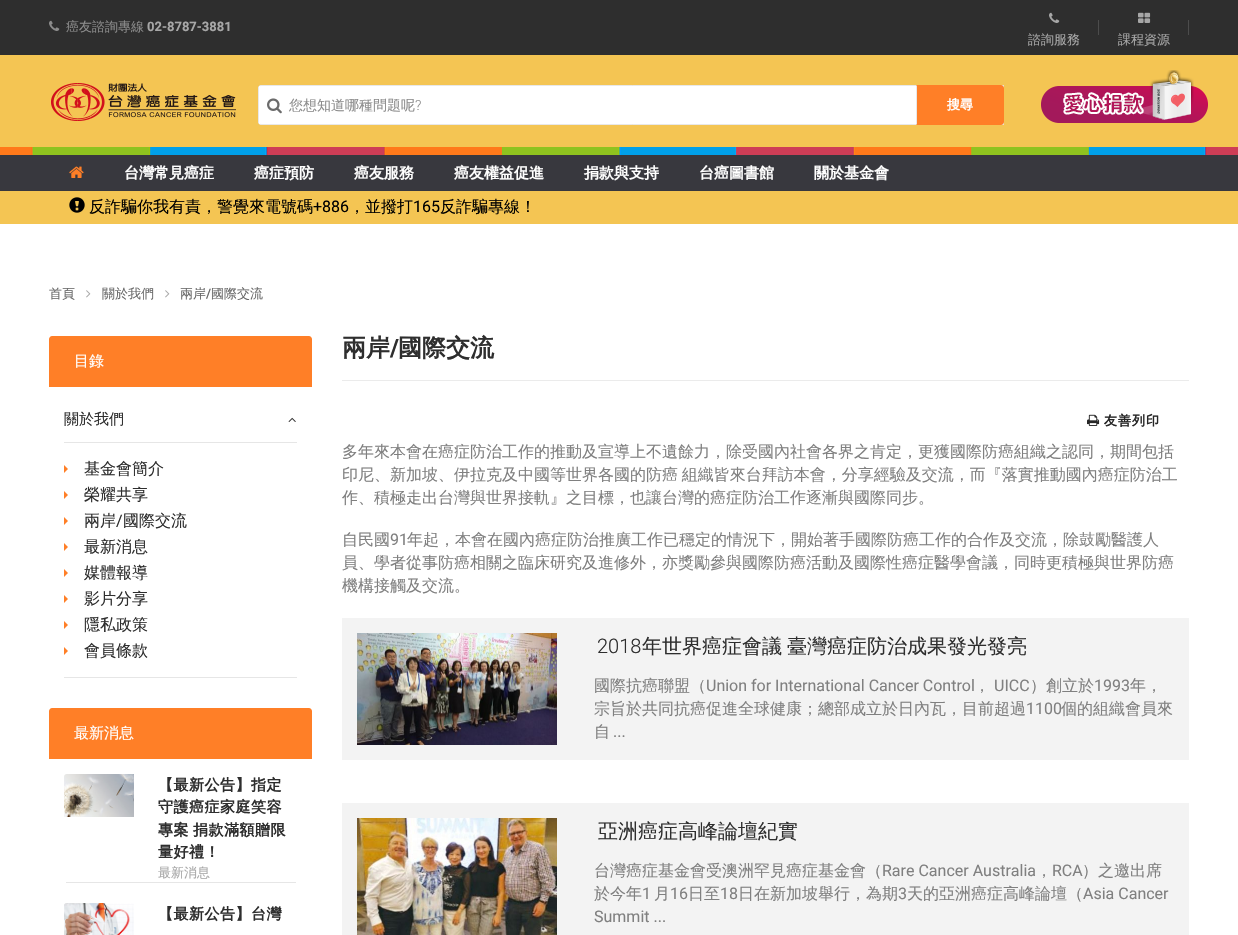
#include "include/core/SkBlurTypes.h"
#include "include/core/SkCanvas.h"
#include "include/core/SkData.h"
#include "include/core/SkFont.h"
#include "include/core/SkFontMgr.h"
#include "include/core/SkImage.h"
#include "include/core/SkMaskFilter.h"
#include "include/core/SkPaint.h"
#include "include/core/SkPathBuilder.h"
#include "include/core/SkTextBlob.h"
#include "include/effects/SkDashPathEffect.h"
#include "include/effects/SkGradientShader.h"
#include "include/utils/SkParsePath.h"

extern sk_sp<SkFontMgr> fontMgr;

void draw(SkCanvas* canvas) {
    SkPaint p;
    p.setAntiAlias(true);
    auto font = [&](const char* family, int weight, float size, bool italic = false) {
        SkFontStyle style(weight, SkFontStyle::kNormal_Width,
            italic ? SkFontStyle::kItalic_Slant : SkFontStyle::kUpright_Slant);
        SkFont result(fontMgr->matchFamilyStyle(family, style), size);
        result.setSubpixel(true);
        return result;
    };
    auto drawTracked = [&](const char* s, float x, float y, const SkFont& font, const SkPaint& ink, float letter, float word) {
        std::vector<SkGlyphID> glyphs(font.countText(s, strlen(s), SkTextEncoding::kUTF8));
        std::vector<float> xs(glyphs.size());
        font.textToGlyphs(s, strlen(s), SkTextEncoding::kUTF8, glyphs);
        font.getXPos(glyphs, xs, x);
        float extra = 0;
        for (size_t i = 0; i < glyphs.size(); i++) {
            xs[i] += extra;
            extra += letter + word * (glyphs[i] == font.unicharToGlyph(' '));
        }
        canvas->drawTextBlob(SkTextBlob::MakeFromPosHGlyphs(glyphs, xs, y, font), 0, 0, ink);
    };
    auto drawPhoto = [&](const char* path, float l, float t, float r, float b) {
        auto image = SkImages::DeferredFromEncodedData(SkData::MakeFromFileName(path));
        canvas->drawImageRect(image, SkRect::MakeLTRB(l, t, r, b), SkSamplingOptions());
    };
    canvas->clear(0xFFFFFFFF);
    p.setColor(0xFF2E2E2E);
    canvas->drawRect(SkRect::MakeLTRB(0, 0, 1238, 55), p);
    drawPhoto("media/1.png", 49, 20, 60, 31);
    auto font1 = font("WenQuanYi Zen Hei", 500, 13);
    p.setColor(0xFF8C8C8C);
    canvas->drawString("癌友諮詢專線", 66, 31, font1, p);
    auto font2 = font("Roboto", 700, 13);
    p.setColor(0xFFA7A7A7);
    canvas->drawString("02-8787-3881", 147, 31, font2, p);
    drawPhoto("media/2.png", 1049, 12, 1060, 23);
    p.setColor(0xFF4C4C4C);
    canvas->drawRect(SkRect::MakeLTRB(1098, 20, 1099, 35), p);
    p.setColor(0xFFA7A7A7);
    canvas->drawString("諮詢服務", 1028, 44, font1, p);
    drawPhoto("media/3.png", 1138, 12, 1151, 23);
    p.setColor(0xFF4C4C4C);
    canvas->drawRect(SkRect::MakeLTRB(1188, 20, 1189, 35), p);
    p.setColor(0xFFA7A7A7);
    canvas->drawString("課程資源", 1118, 44, font1, p);
    p.setColor(0xFFF4C553);
    canvas->drawRect(SkRect::MakeLTRB(0, 55, 1238, 147), p);
    drawPhoto("media/4.png", 0, 147, 1238, 155);
    drawPhoto("media/5.png", 51, 83, 236, 121);
    p.setColor(0xFFFFFFFF);
    canvas->drawPath(SkPathBuilder().moveTo(261, 85.5f).lineTo(1003.5f, 85.5f).lineTo(1003.5f, 124.5f).lineTo(261, 124.5f).cubicTo(259.5f, 124.5f, 258.5f, 123.5f, 258.5f, 122).lineTo(258.5f, 88).cubicTo(258.5f, 86.5f, 259.5f, 85.5f, 261, 85.5f).close().detach(), p);
    p.setStyle(SkPaint::kStroke_Style);
    p.setStrokeWidth(1);
    p.setColor(0xFFE8E8E8);
    canvas->drawPath(SkPathBuilder().moveTo(261, 85.5f).lineTo(1003.5f, 85.5f).lineTo(1003.5f, 124.5f).lineTo(261, 124.5f).cubicTo(259.5f, 124.5f, 258.5f, 123.5f, 258.5f, 122).lineTo(258.5f, 88).cubicTo(258.5f, 86.5f, 259.5f, 85.5f, 261, 85.5f).close().detach(), p);
    p.setStyle(SkPaint::kFill_Style);
    p.setColor(0xFFFFFFFF);
    canvas->drawRect(SkRect::MakeLTRB(259, 86, 260, 124), p);
    drawPhoto("media/6.png", 267, 98, 282, 114);
    auto font3 = font("WenQuanYi Zen Hei", 500, 14);
    p.setColor(0xFF8C8C8C);
    canvas->drawString("您想知道哪種問題呢", 289, 110, font3, p);
    auto font4 = font("Roboto", 300, 14);
    canvas->drawString("?", 415, 110, font4, p);
    p.setColor(0xFFFF7F27);
    canvas->drawPath(SkPathBuilder().moveTo(916, 85).lineTo(1001, 85).cubicTo(1002.5f, 85, 1004, 86.5f, 1004, 88).lineTo(1004, 122).cubicTo(1004, 123.5f, 1002.5f, 125, 1001, 125).lineTo(916, 125).close().detach(), p);
    p.setColor(0xFFE8E8E8);
    canvas->drawPath(SkPathBuilder().moveTo(916, 85).lineTo(916, 125).lineTo(917, 124).lineTo(917, 86).close().detach(), p);
    auto font5 = font("WenQuanYi Zen Hei", 700, 13);
    p.setColor(0xFFFFFFFF);
    canvas->drawString("搜尋", 947, 109, font5, p);
    drawPhoto("media/7.png", 1041, 70, 1208, 123);
    p.setColor(0xFF38383E);
    canvas->drawRect(SkRect::MakeLTRB(0, 155, 1238, 191), p);
    drawPhoto("media/8.png", 69, 166, 84, 178);
    auto font6 = font("WenQuanYi Zen Hei", 700, 15);
    p.setColor(0xFFFFFFFF);
    {
        const struct { const char* s; float x, y; } items[] = {
            {"台灣常見癌症", 124, 178},
            {"癌症預防", 254, 178},
            {"癌友服務", 354, 178},
            {"癌友權益促進", 454, 178},
            {"捐款與支持", 584, 178},
            {"台癌圖書館", 699, 178},
            {"關於基金會", 814, 178},
        };
        for (auto [s, x, y] : items) {
            canvas->drawString(s, x, y, font6, p);
        }
    }
    p.setColor(0xFFF4C553);
    canvas->drawRect(SkRect::MakeLTRB(0, 191, 1238, 224), p);
    drawPhoto("media/9.png", 69, 197, 85, 213);
    auto font7 = font("WenQuanYi Zen Hei", 500, 16);
    p.setColor(0xFF000000);
    canvas->drawString("反詐騙你我有責，警覺來電號碼", 89, 212, font7, p);
    auto font8 = font("Roboto", 400, 16);
    canvas->drawString("+886", 313, 212, font8, p);
    canvas->drawString("，並撥打", 349, 212, font7, p);
    canvas->drawString("165", 413, 212, font8, p);
    canvas->drawString("反詐騙專線！", 440, 212, font7, p);
    p.setColor(0xFF696969);
    canvas->drawString("首頁", 49, 298, font1, p);
    drawPhoto("media/10.png", 86, 290, 91, 298);
    canvas->drawString("關於我們", 102, 298, font1, p);
    drawPhoto("media/10.png", 165, 290, 170, 298);
    canvas->drawString("兩岸", 180, 298, font1, p);
    auto font9 = font("Roboto", 500, 13);
    canvas->drawString("/", 206, 298, font9, p);
    canvas->drawString("國際交流", 211, 298, font1, p);
    p.setColor(0xFFFF7F27);
    canvas->drawPath(SkPathBuilder().moveTo(52, 336).lineTo(309, 336).cubicTo(310.5f, 336, 312, 337.5f, 312, 339).lineTo(312, 387).lineTo(49, 387).lineTo(49, 339).cubicTo(49, 337.5f, 50.5f, 336, 52, 336).close().detach(), p);
    auto font10 = font("WenQuanYi Zen Hei", 500, 15);
    p.setColor(0xFFFFFFFF);
    canvas->drawString("目錄", 74, 366, font10, p);
    p.setColor(0xFF2E2E2E);
    canvas->drawString("關於我們", 64, 424, font10, p);
    drawPhoto("media/11.png", 288, 417, 296, 422);
    p.setColor(0xFFE6E6E6);
    canvas->drawRect(SkRect::MakeLTRB(64, 442, 297, 443), p);
    canvas->drawRect(SkRect::MakeLTRB(64, 677, 297, 678), p);
    p.setColor(0xFFFF7F27);
    canvas->drawPath(SkPathBuilder().moveTo(64, 473).lineTo(64, 465).lineTo(68, 469).close().detach(), p);
    p.setColor(0xFF2E2E2E);
    canvas->drawString("基金會簡介", 84, 474, font7, p);
    p.setColor(0xFFFF7F27);
    canvas->drawPath(SkPathBuilder().moveTo(64, 499).lineTo(64, 491).lineTo(68, 495).close().detach(), p);
    p.setColor(0xFF2E2E2E);
    canvas->drawString("榮耀共享", 84, 500, font7, p);
    p.setColor(0xFFFF7F27);
    canvas->drawPath(SkPathBuilder().moveTo(64, 525).lineTo(64, 517).lineTo(68, 521).close().detach(), p);
    p.setColor(0xFF2E2E2E);
    canvas->drawString("兩岸", 84, 526, font7, p);
    canvas->drawString("/", 116, 526, font8, p);
    canvas->drawString("國際交流", 123, 526, font7, p);
    p.setColor(0xFFFF7F27);
    canvas->drawPath(SkPathBuilder().moveTo(64, 551).lineTo(64, 543).lineTo(68, 547).close().detach(), p);
    p.setColor(0xFF2E2E2E);
    canvas->drawString("最新消息", 84, 552, font7, p);
    p.setColor(0xFFFF7F27);
    canvas->drawPath(SkPathBuilder().moveTo(64, 577).lineTo(64, 569).lineTo(68, 573).close().detach(), p);
    p.setColor(0xFF2E2E2E);
    canvas->drawString("媒體報導", 84, 578, font7, p);
    p.setColor(0xFFFF7F27);
    canvas->drawPath(SkPathBuilder().moveTo(64, 603).lineTo(64, 595).lineTo(68, 599).close().detach(), p);
    p.setColor(0xFF2E2E2E);
    canvas->drawString("影片分享", 84, 604, font7, p);
    p.setColor(0xFFFF7F27);
    canvas->drawPath(SkPathBuilder().moveTo(64, 629).lineTo(64, 621).lineTo(68, 625).close().detach(), p);
    p.setColor(0xFF2E2E2E);
    canvas->drawString("隱私政策", 84, 630, font7, p);
    p.setColor(0xFFFF7F27);
    canvas->drawPath(SkPathBuilder().moveTo(64, 655).lineTo(64, 647).lineTo(68, 651).close().detach(), p);
    p.setColor(0xFF2E2E2E);
    canvas->drawString("會員條款", 84, 656, font7, p);
    p.setColor(0xFFFF7F27);
    canvas->drawPath(SkPathBuilder().moveTo(52, 708).lineTo(309, 708).cubicTo(310.5f, 708, 312, 709.5f, 312, 711).lineTo(312, 759).lineTo(49, 759).lineTo(49, 711).cubicTo(49, 709.5f, 50.5f, 708, 52, 708).close().detach(), p);
    p.setColor(0xFFFFFFFF);
    canvas->drawString("最新消息", 74, 738, font10, p);
    p.setColor(0xFFE6E6E6);
    canvas->drawRect(SkRect::MakeLTRB(66, 882, 296, 883), p);
    drawPhoto("media/12.png", 64, 774, 134, 817);
    p.setColor(0xFF2E2E2E);
    drawTracked("【最新公告】指定", 158, 790, font6, p, 0.5f, 0);
    drawTracked("守護癌症家庭笑容", 158, 812, font6, p, 0.5f, 0);
    drawTracked("專案 捐款滿額贈限", 158, 835, font6, p, 0.5f, -1);
    drawTracked("量好禮！", 158, 857, font6, p, 0.5f, 0);
    p.setColor(0xFFA7A7A7);
    canvas->drawString("最新消息", 158, 877, font1, p);
    drawPhoto("media/13.png", 64, 903, 134, 935);
    p.setColor(0xFF2E2E2E);
    drawTracked("【最新公告】台灣", 158, 919, font6, p, 0.5f, 0);
    auto font11 = font("WenQuanYi Zen Hei", 700, 24);
    canvas->drawString("兩岸", 342, 356, font11, p);
    auto font12 = font("Roboto", 700, 24);
    canvas->drawString("/", 390, 356, font12, p);
    canvas->drawString("國際交流", 398, 356, font11, p);
    p.setColor(0xFFEBEBEB);
    canvas->drawRect(SkRect::MakeLTRB(342, 380, 1189, 381), p);
    drawPhoto("media/14.png", 1087, 414, 1100, 426);
    p.setColor(0xFF262626);
    drawTracked("友善列印", 1104, 425, font5, p, 1, 0);
    p.setColor(0xFF808080);
    canvas->drawString("多年來本會在癌症防治工作的推動及宣導上不遺餘力，除受國內社會各界之肯定，更獲國際防癌組織之認同，期間包括", 342, 457, font7, p);
    drawTracked("印尼、新加坡、伊拉克及中國等世界各國的防癌 組織皆來台拜訪本會，分享經驗及交流，而『落實推動國內癌症防治工", 342, 480, font7, p, 0, -1);
    canvas->drawString("作、積極走出台灣與世界接軌』之目標，也讓台灣的癌症防治工作逐漸與國際同步。", 342, 503, font7, p);
    canvas->drawString("自民國", 342, 545, font7, p);
    canvas->drawString("91", 390, 545, font8, p);
    {
        const struct { const char* s; float x, y; } items[] = {
            {"年起，本會在國內癌症防治推廣工作已穩定的情況下，開始著手國際防癌工作的合作及交流，除鼓勵醫護人", 407, 545},
            {"員、學者從事防癌相關之臨床研究及進修外，亦獎勵參與國際防癌活動及國際性癌症醫學會議，同時更積極與世界防癌", 342, 568},
            {"機構接觸及交流。", 342, 591},
        };
        for (auto [s, x, y] : items) {
            canvas->drawString(s, x, y, font7, p);
        }
    }
    p.setColor(0xFFF3F3F3);
    canvas->drawRect(SkRect::MakeLTRB(342, 618, 1189, 760), p);
    drawPhoto("media/15.png", 357, 633, 557, 745);
    auto font13 = font("Roboto", 300, 20);
    p.setColor(0xFF2E2E2E);
    canvas->drawString("2018", 597, 653, font13, p);
    auto font14 = font("WenQuanYi Zen Hei", 500, 20);
    drawTracked("年世界癌症會議 臺灣癌症防治成果發光發亮", 642, 653, font14, p, 0, -1);
    p.setColor(0xFF808080);
    canvas->drawString("國際抗癌聯盟（", 594, 691, font7, p);
    canvas->drawString("Union for International Cancer Control", 706, 691, font8, p);
    canvas->drawString("，", 974, 691, font7, p);
    canvas->drawString("UICC", 994, 691, font8, p);
    canvas->drawString("）創立於", 1030, 691, font7, p);
    canvas->drawString("1993", 1094, 691, font8, p);
    canvas->drawString("年，", 1130, 691, font7, p);
    canvas->drawString("宗旨於共同抗癌促進全球健康；總部成立於日內瓦，目前超過", 594, 714, font7, p);
    canvas->drawString("1100", 1026, 714, font8, p);
    canvas->drawString("個的組織會員來", 1061, 714, font7, p);
    canvas->drawString("自", 594, 737, font7, p);
    canvas->drawString("...", 613, 737, font8, p);
    p.setColor(0xFFF3F3F3);
    canvas->drawRect(SkRect::MakeLTRB(342, 803, 1189, 935), p);
    drawPhoto("media/16.png", 357, 818, 557, 935);
    p.setColor(0xFF2E2E2E);
    canvas->drawString("亞洲癌症高峰論壇紀實", 598, 838, font14, p);
    p.setColor(0xFF808080);
    canvas->drawString("台灣癌症基金會受澳洲罕見癌症基金會（", 594, 876, font7, p);
    canvas->drawString("Rare Cancer Australia", 882, 876, font8, p);
    canvas->drawString("，", 1036, 876, font7, p);
    canvas->drawString("RCA", 1052, 876, font8, p);
    canvas->drawString("）之邀出席", 1082, 876, font7, p);
    canvas->drawString("於今年", 594, 899, font7, p);
    canvas->drawString("1", 642, 899, font8, p);
    canvas->drawString("月", 654, 899, font7, p);
    canvas->drawString("16", 670, 899, font8, p);
    canvas->drawString("日至", 688, 899, font7, p);
    canvas->drawString("18", 720, 899, font8, p);
    canvas->drawString("日在新加坡舉行，為期", 738, 899, font7, p);
    canvas->drawString("3", 898, 899, font8, p);
    canvas->drawString("天的亞洲癌症高峰論壇（", 907, 899, font7, p);
    canvas->drawString("Asia Cancer", 1083, 899, font8, p);
    canvas->drawString("Summit ...", 594, 922, font8, p);
}
